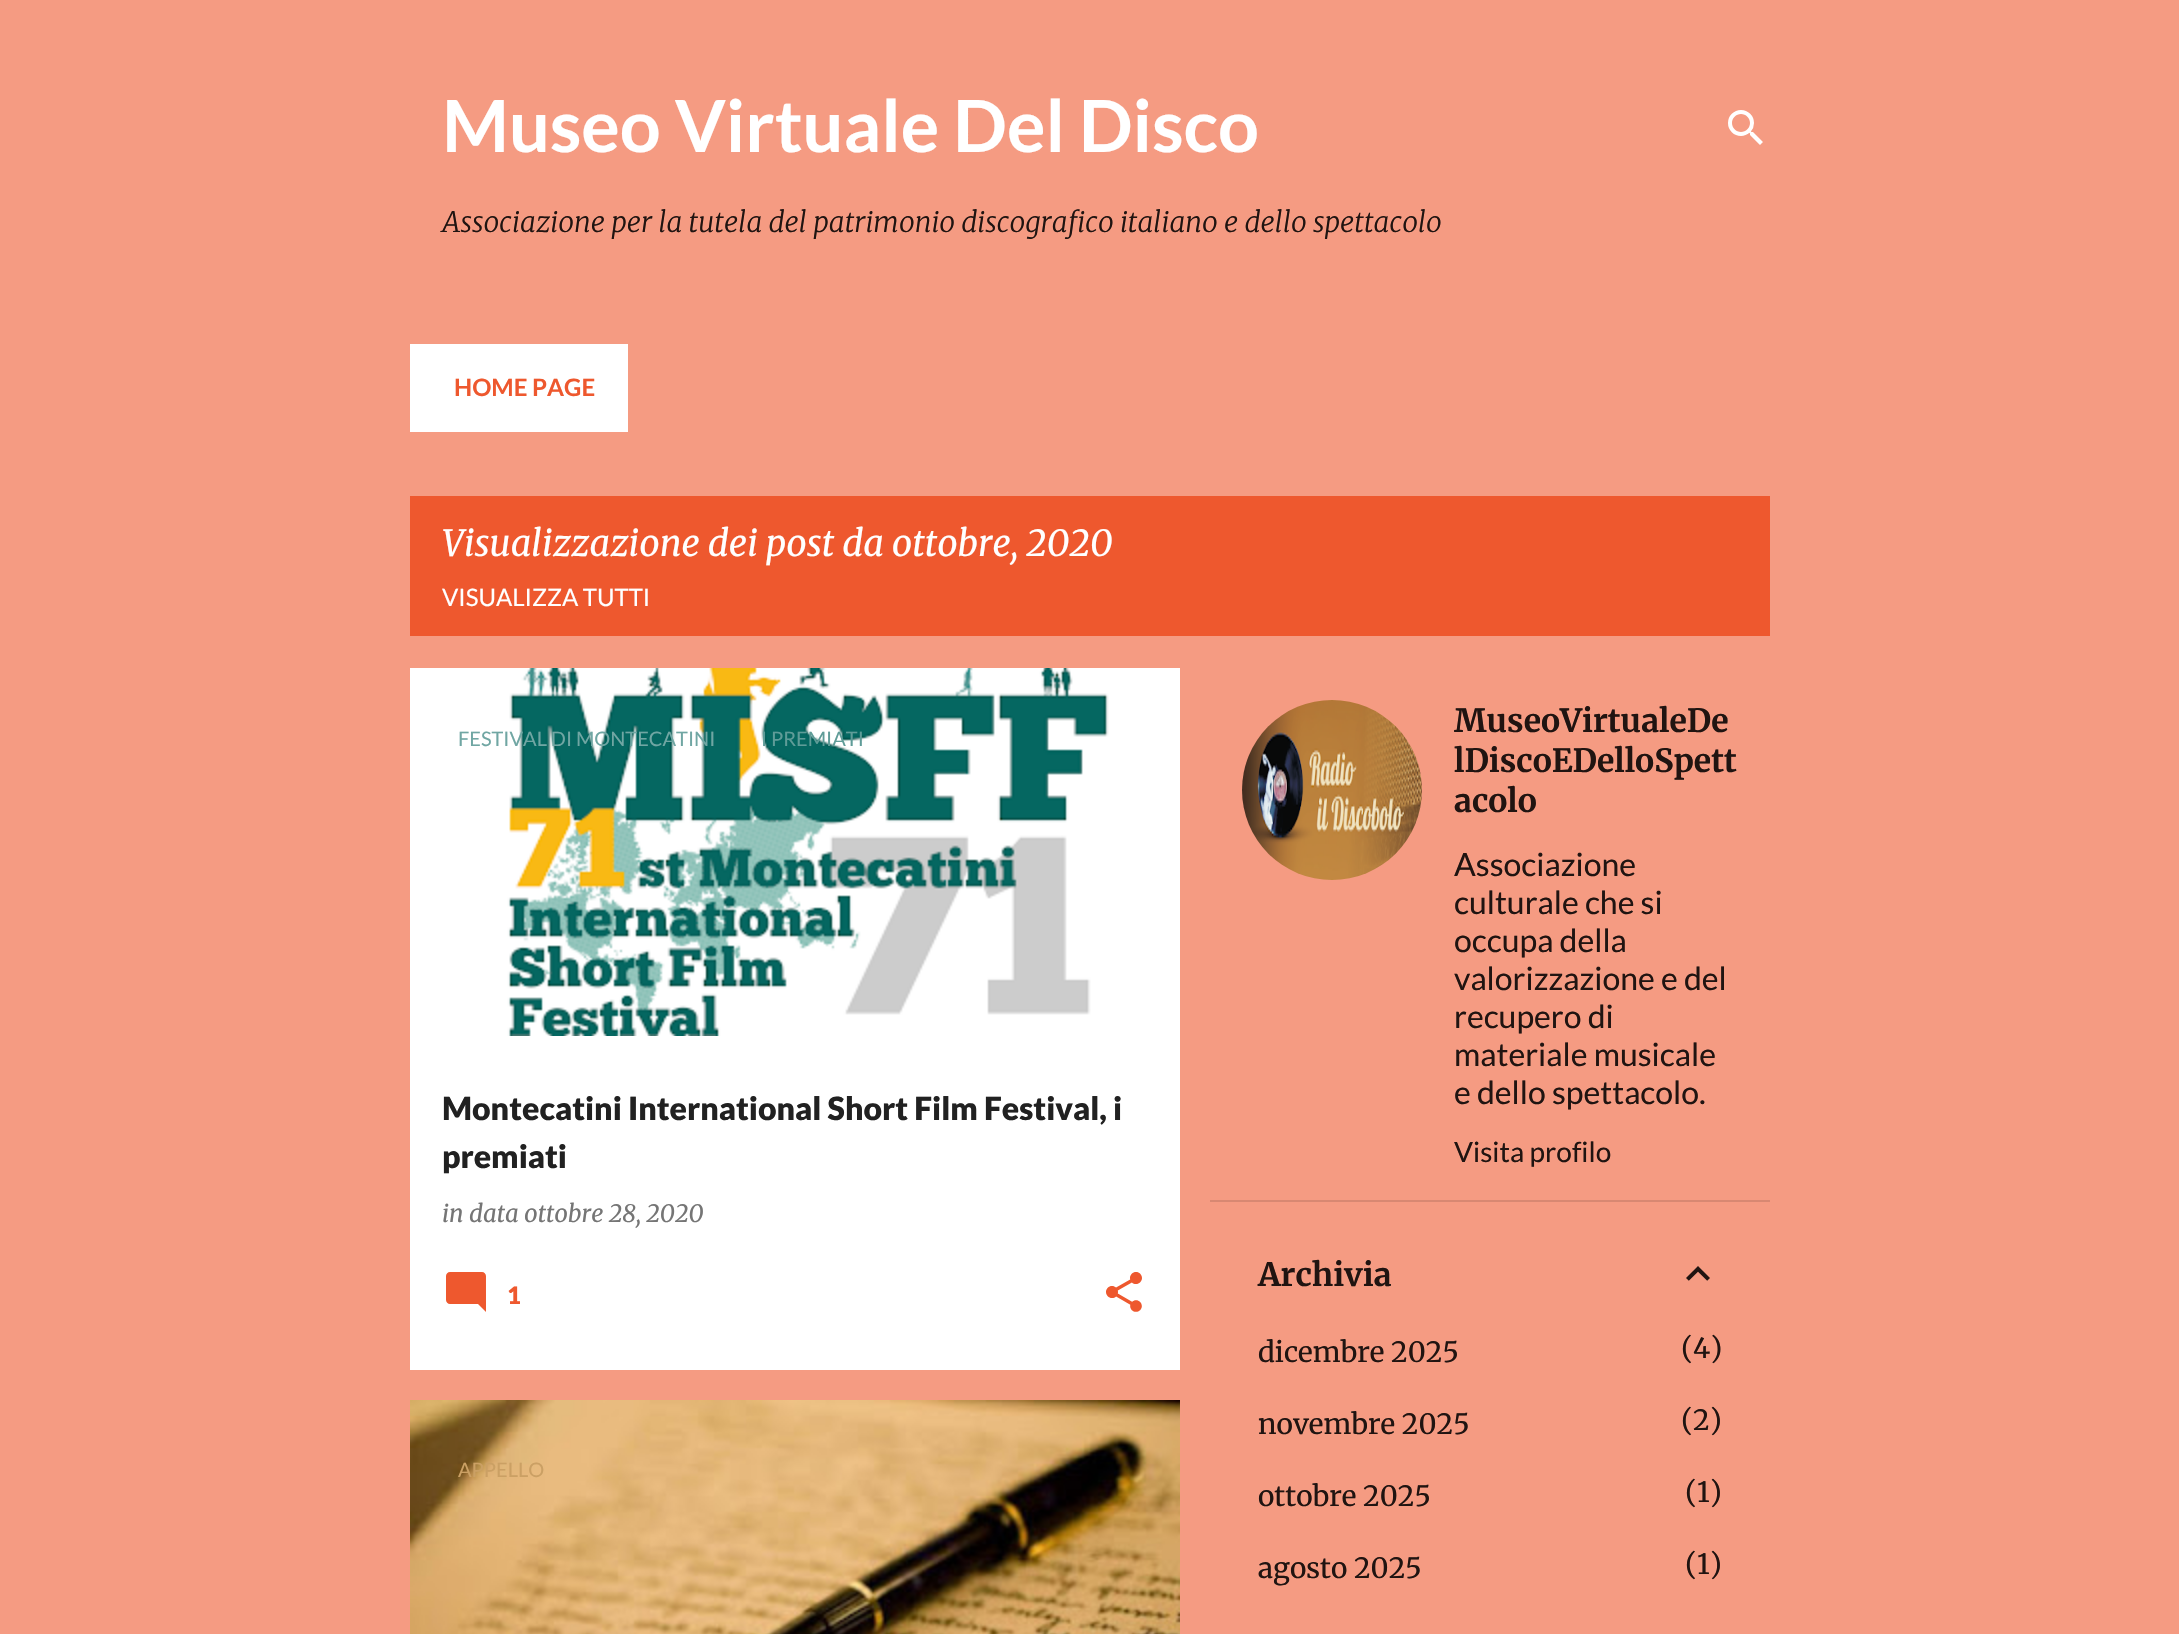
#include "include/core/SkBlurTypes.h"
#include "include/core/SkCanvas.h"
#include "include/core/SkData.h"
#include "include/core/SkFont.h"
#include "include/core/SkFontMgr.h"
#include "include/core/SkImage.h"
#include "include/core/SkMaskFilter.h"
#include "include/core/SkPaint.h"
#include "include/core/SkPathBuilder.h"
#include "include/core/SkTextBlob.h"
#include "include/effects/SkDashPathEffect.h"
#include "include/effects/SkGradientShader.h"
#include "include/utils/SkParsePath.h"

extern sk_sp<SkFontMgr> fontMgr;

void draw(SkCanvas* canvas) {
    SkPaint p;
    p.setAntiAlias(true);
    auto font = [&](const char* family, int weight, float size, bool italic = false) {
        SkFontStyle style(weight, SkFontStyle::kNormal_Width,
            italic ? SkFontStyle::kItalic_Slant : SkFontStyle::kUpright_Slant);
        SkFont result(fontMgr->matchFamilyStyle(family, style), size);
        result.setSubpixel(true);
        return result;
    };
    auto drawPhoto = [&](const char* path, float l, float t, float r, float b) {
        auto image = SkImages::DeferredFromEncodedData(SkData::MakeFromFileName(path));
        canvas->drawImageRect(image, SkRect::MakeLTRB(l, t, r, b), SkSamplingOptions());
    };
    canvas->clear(0xFFF59B82);
    auto font1 = font("Lato", 700, 72);
    p.setColor(0xFFFFFFFF);
    canvas->drawString("Museo Virtuale Del Disco", 442, 152, font1, p);
    auto font2 = font("Merriweather", 300, 28, true);
    p.setColor(0xFF201411);
    canvas->drawString("Associazione per la tutela del patrimonio discografico italiano e dello spettacolo", 442, 232, font2, p);
    drawPhoto("media/1.png", 1728, 110, 1763, 145);
    p.setColor(0xFFFFFFFF);
    canvas->drawRect(SkRect::MakeLTRB(410, 344, 628, 432), p);
    auto font3 = font("Lato", 700, 24);
    p.setColor(0xFFEE582E);
    canvas->drawString("HOME PAGE", 454, 396, font3, p);
    canvas->drawRect(SkRect::MakeLTRB(410, 496, 1770, 636), p);
    auto font4 = font("Merriweather", 400, 36, true);
    p.setColor(0xFFFFFFFF);
    canvas->drawString("Visualizzazione dei post da ottobre, 2020", 442, 556, font4, p);
    auto font5 = font("Lato", 400, 24);
    canvas->drawString("VISUALIZZA TUTTI", 442, 606, font5, p);
    canvas->drawRect(SkRect::MakeLTRB(410, 1036, 1180, 1370), p);
    drawPhoto("media/2.png", 410, 668, 1180, 1036);
    auto font6 = font("Lato", 400, 20);
    p.setColor(0xFF70A6A3);
    canvas->drawString("FESTIVAL DI MONTECATINI", 458, 746, font6, p);
    p.setColor(0xFF5F9C98);
    canvas->drawString("I PREMIATI", 761, 746, font6, p);
    auto font7 = font("Merriweather", 400, 24, true);
    p.setColor(0xFF757575);
    canvas->drawString("in data ottobre 28, 2020", 442, 1222, font7, p);
    auto font8 = font("Lato", 900, 32);
    p.setColor(0xFF212121);
    canvas->drawString("Montecatini International Short Film Festival, i", 442, 1120, font8, p);
    canvas->drawString("premiati", 442, 1168, font8, p);
    drawPhoto("media/3.png", 446, 1272, 486, 1312);
    auto font9 = font("Lato", 900, 24);
    p.setColor(0xFFEE582E);
    canvas->drawString("1", 507, 1304, font9, p);
    drawPhoto("media/4.png", 1106, 1272, 1142, 1312);
    drawPhoto("media/5.png", 410, 1400, 1180, 1634);
    p.setColor(0xFFCBA064);
    canvas->drawString("APPELLO", 458, 1477, font6, p);
    drawPhoto("media/6.png", 1242, 700, 1422, 880);
    auto font10 = font("Merriweather", 700, 32);
    p.setColor(0xFF201411);
    {
        const struct { const char* s; float x, y; } items[] = {
            {"MuseoVirtualeDe", 1454, 732},
            {"lDiscoEDelloSpett", 1454, 772},
            {"acolo", 1454, 812},
        };
        for (auto [s, x, y] : items) {
            canvas->drawString(s, x, y, font10, p);
        }
    }
    auto font11 = font("Lato", 400, 32);
    {
        const struct { const char* s; float x, y; } items[] = {
            {"Associazione", 1454, 876},
            {"culturale che si", 1454, 914},
            {"occupa della", 1454, 952},
            {"valorizzazione e del", 1454, 990},
            {"recupero di", 1454, 1028},
            {"materiale musicale", 1454, 1066},
            {"e dello spettacolo.", 1454, 1104},
        };
        for (auto [s, x, y] : items) {
            canvas->drawString(s, x, y, font11, p);
        }
    }
    auto font12 = font("Lato", 400, 28);
    canvas->drawString("Visita profilo", 1454, 1162, font12, p);
    p.setColor(0xFFD88872);
    canvas->drawRect(SkRect::MakeLTRB(1210, 1200, 1770, 1202), p);
    p.setColor(0xFF201411);
    canvas->drawString("Archivia", 1258, 1286, font10, p);
    drawPhoto("media/7.png", 1686, 1266, 1710, 1281);
    auto font13 = font("Merriweather", 400, 28);
    {
        const struct { const char* s; float x, y; } items[] = {
            {"dicembre 2025", 1258, 1362},
            {"(4)", 1681, 1358},
            {"novembre 2025", 1258, 1434},
            {"(2)", 1681, 1430},
            {"ottobre 2025", 1258, 1506},
            {"(1)", 1685, 1502},
            {"agosto 2025", 1258, 1578},
            {"(1)", 1685, 1574},
        };
        for (auto [s, x, y] : items) {
            canvas->drawString(s, x, y, font13, p);
        }
    }
}
